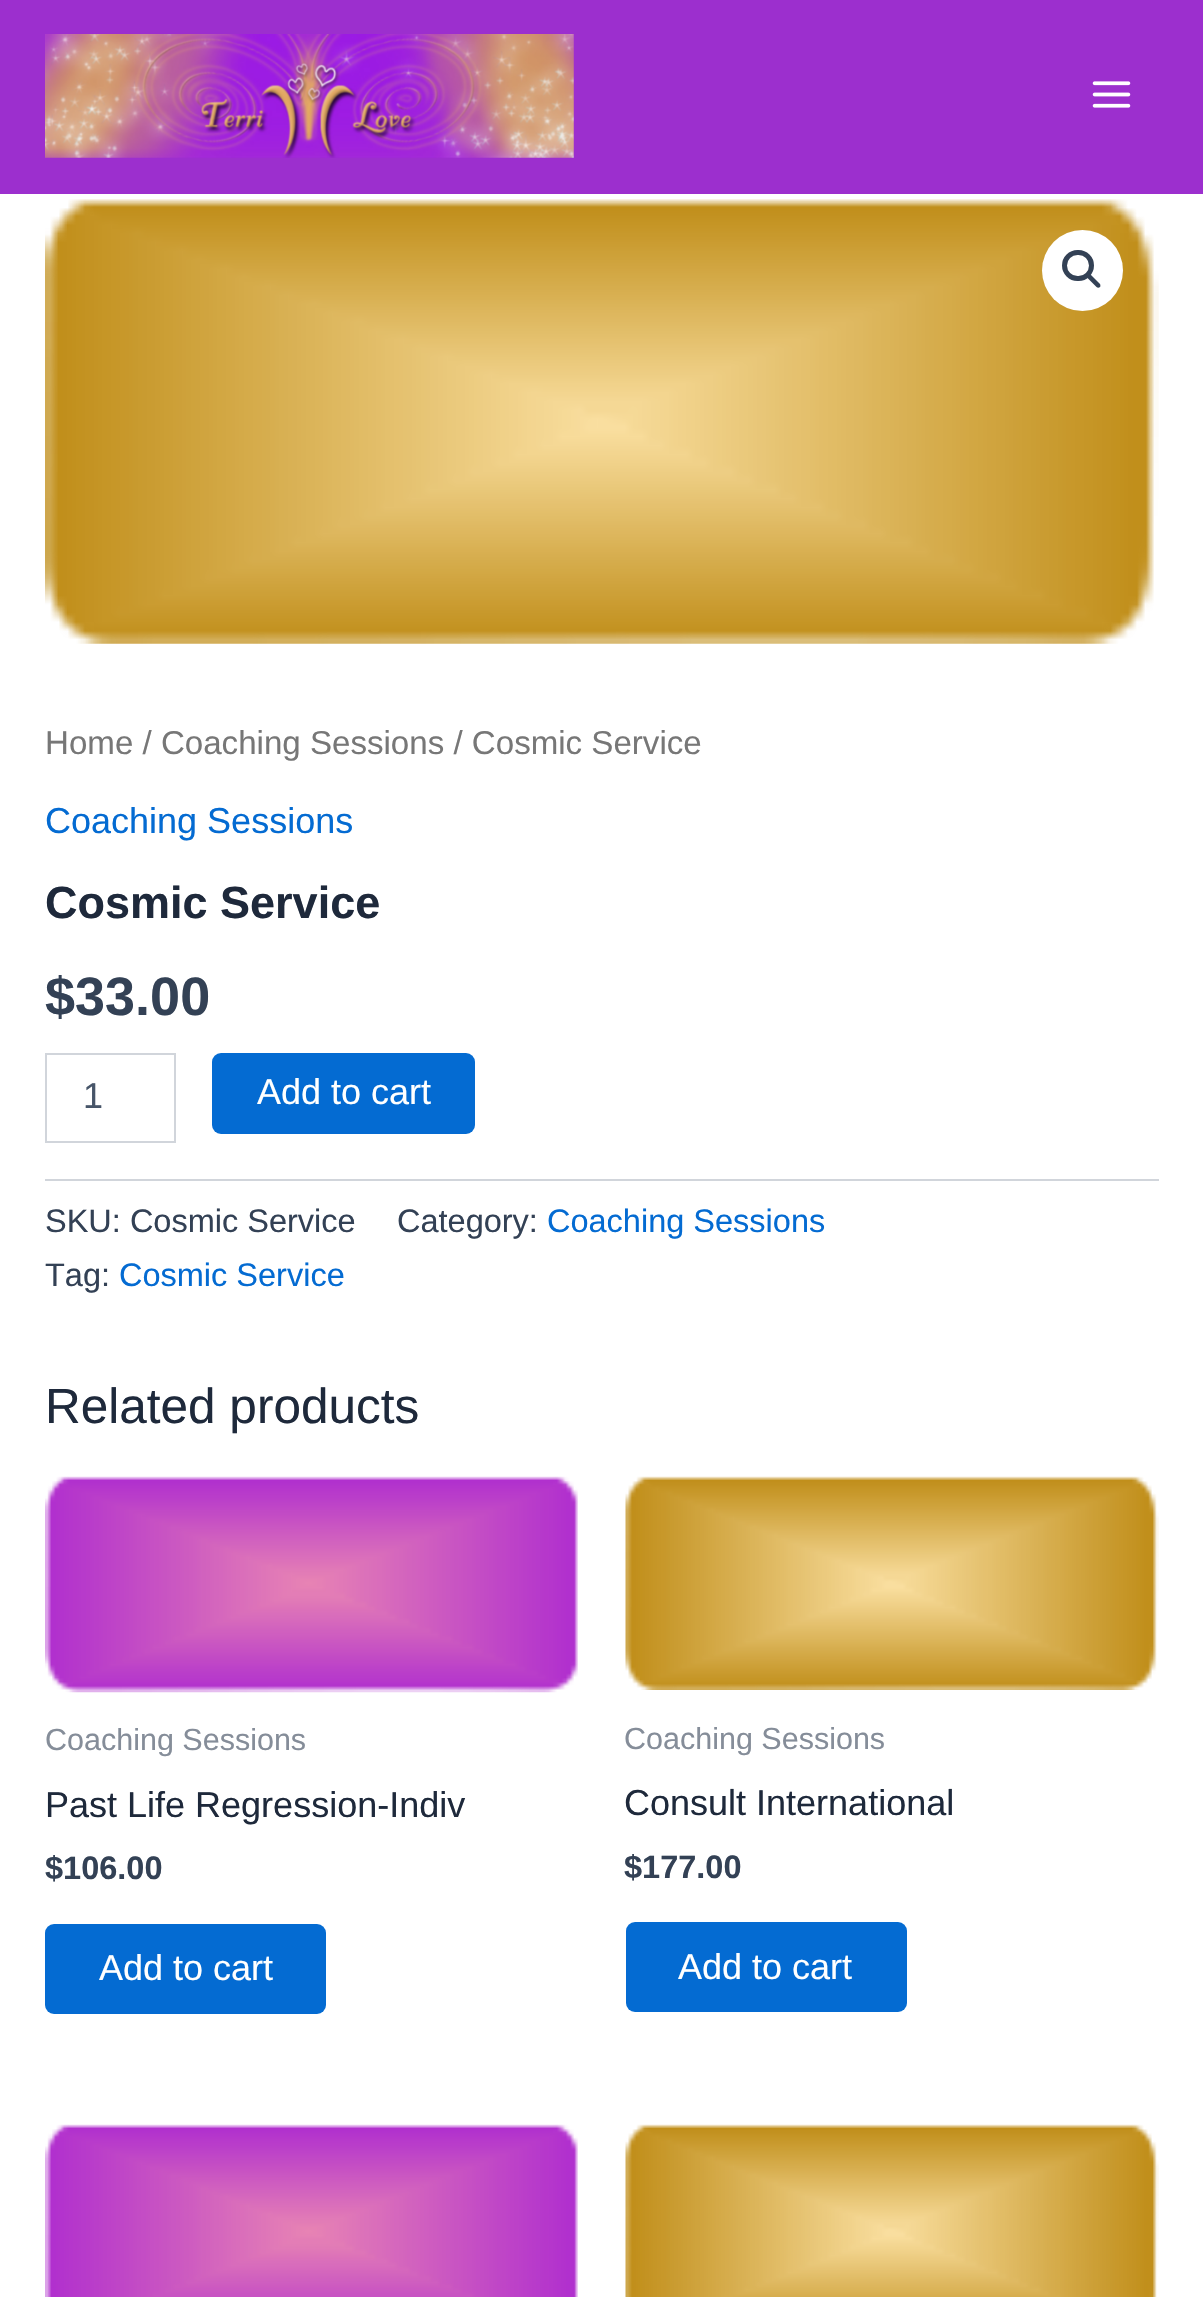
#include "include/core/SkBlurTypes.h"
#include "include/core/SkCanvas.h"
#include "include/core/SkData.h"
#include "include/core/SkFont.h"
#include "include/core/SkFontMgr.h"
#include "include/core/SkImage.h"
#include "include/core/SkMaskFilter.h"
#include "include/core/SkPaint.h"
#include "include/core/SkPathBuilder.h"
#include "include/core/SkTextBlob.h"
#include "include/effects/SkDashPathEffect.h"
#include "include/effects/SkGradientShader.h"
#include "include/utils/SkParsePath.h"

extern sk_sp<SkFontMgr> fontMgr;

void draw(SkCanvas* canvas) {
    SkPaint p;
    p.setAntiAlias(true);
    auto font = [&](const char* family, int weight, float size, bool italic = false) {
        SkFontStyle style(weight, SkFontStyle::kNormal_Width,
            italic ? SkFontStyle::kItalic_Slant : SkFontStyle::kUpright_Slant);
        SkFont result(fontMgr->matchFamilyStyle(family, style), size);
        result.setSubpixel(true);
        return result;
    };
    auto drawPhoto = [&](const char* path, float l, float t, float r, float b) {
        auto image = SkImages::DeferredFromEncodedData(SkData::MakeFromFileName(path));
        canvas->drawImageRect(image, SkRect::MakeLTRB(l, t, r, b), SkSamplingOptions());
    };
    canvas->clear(0xFFFFFFFF);
    p.setColor(0xFF9C2FCE);
    canvas->drawRect(SkRect::MakeLTRB(0, 0, 1203, 194), p);
    drawPhoto("media/1.png", 45, 34, 574, 158);
    drawPhoto("media/2.png", 1092, 81, 1131, 108);
    drawPhoto("media/3.png", 45, 199, 1159, 644);
    p.setColor(0xFFFFFFFF);
    canvas->drawCircle(1082.5f, 270.5f, 40.5f, p);
    p.setStyle(SkPaint::kStroke_Style);
    p.setStrokeWidth(5);
    p.setColor(0xFF334155);
    canvas->drawRoundRect(SkRect::MakeLTRB(1064.5f, 252.5f, 1091.5f, 278.5f), 13, 13, p);
    p.setStyle(SkPaint::kFill_Style);
    canvas->drawPath(SkPathBuilder().moveTo(1087, 274.5f).cubicTo(1088, 273.5f, 1089.5f, 273.5f, 1090.5f, 274.5f).lineTo(1100, 284).cubicTo(1100.5f, 285, 1100.5f, 286.5f, 1100, 287).cubicTo(1099, 288, 1097.5f, 288, 1096.5f, 287).lineTo(1087, 277.5f).cubicTo(1086.5f, 277, 1086.5f, 275.5f, 1087, 274.5f).close().detach(), p);
    auto font1 = font("Liberation Sans", 400, 33.1f);
    p.setColor(0xFF777777);
    canvas->drawString("Home / Coaching Sessions / Cosmic Service", 45, 754, font1, p);
    auto font2 = font("Liberation Sans", 400, 36);
    p.setColor(0xFF046BD2);
    canvas->drawString("Coaching Sessions", 45, 833, font2, p);
    auto font3 = font("Liberation Sans", 700, 45);
    p.setColor(0xFF1E293B);
    canvas->drawString("Cosmic Service", 45, 918, font3, p);
    auto font4 = font("Liberation Sans", 700, 54);
    p.setColor(0xFF334155);
    canvas->drawString("$33.00", 45, 1015, font4, p);
    p.setStyle(SkPaint::kStroke_Style);
    p.setStrokeWidth(2);
    p.setColor(0xFFD1D5DB);
    canvas->drawRect(SkRect::MakeLTRB(46, 1054, 175, 1142), p);
    p.setStyle(SkPaint::kFill_Style);
    p.setColor(0xFF475569);
    canvas->drawString("1", 83, 1108, font2, p);
    p.setColor(0xFF046BD2);
    canvas->drawRoundRect(SkRect::MakeLTRB(212, 1053, 475, 1134), 9, 9, p);
    p.setColor(0xFFFFFFFF);
    canvas->drawString("Add to cart", 257, 1104, font2, p);
    p.setColor(0xFFD1D5DB);
    canvas->drawRect(SkRect::MakeLTRB(45, 1179, 1159, 1181), p);
    auto font5 = font("Liberation Sans", 400, 32.5f);
    p.setColor(0xFF334155);
    canvas->drawString("SKU: Cosmic Service", 45, 1232, font5, p);
    canvas->drawString("Category:", 397, 1232, font5, p);
    p.setColor(0xFF046BD2);
    canvas->drawString("Coaching Sessions", 547, 1232, font5, p);
    p.setColor(0xFF334155);
    canvas->drawString("Tag:", 45, 1286, font5, p);
    p.setColor(0xFF046BD2);
    canvas->drawString("Cosmic Service", 119, 1286, font5, p);
    auto font6 = font("Liberation Sans", 400, 49.5f);
    p.setColor(0xFF1E293B);
    canvas->drawString("Related products", 45, 1423, font6, p);
    drawPhoto("media/4.png", 45, 1476, 578, 1693);
    auto font7 = font("Liberation Sans", 400, 30.5f);
    p.setColor(0xFF858D99);
    canvas->drawString("Coaching Sessions", 45, 1750, font7, p);
    p.setColor(0xFF1E293B);
    canvas->drawString("Past Life Regression-Indiv", 45, 1817, font2, p);
    auto font8 = font("Liberation Sans", 700, 32.5f);
    p.setColor(0xFF334155);
    canvas->drawString("$106.00", 45, 1879, font8, p);
    p.setColor(0xFF046BD2);
    canvas->drawRoundRect(SkRect::MakeLTRB(45, 1924, 326, 2014), 9, 9, p);
    p.setColor(0xFFFFFFFF);
    canvas->drawString("Add to cart", 99, 1980, font2, p);
    drawPhoto("media/5.png", 625, 1476, 1159, 1690);
    p.setColor(0xFF858D99);
    canvas->drawString("Coaching Sessions", 624, 1749, font7, p);
    p.setColor(0xFF1E293B);
    canvas->drawString("Consult International", 624, 1815, font2, p);
    p.setColor(0xFF334155);
    canvas->drawString("$177.00", 624, 1878, font8, p);
    p.setColor(0xFF046BD2);
    canvas->drawRoundRect(SkRect::MakeLTRB(626, 1922, 907, 2012), 9, 9, p);
    p.setColor(0xFFFFFFFF);
    canvas->drawString("Add to cart", 678, 1979, font2, p);
    drawPhoto("media/6.png", 45, 2124, 578, 2297);
    drawPhoto("media/7.png", 625, 2124, 1159, 2297);
}
